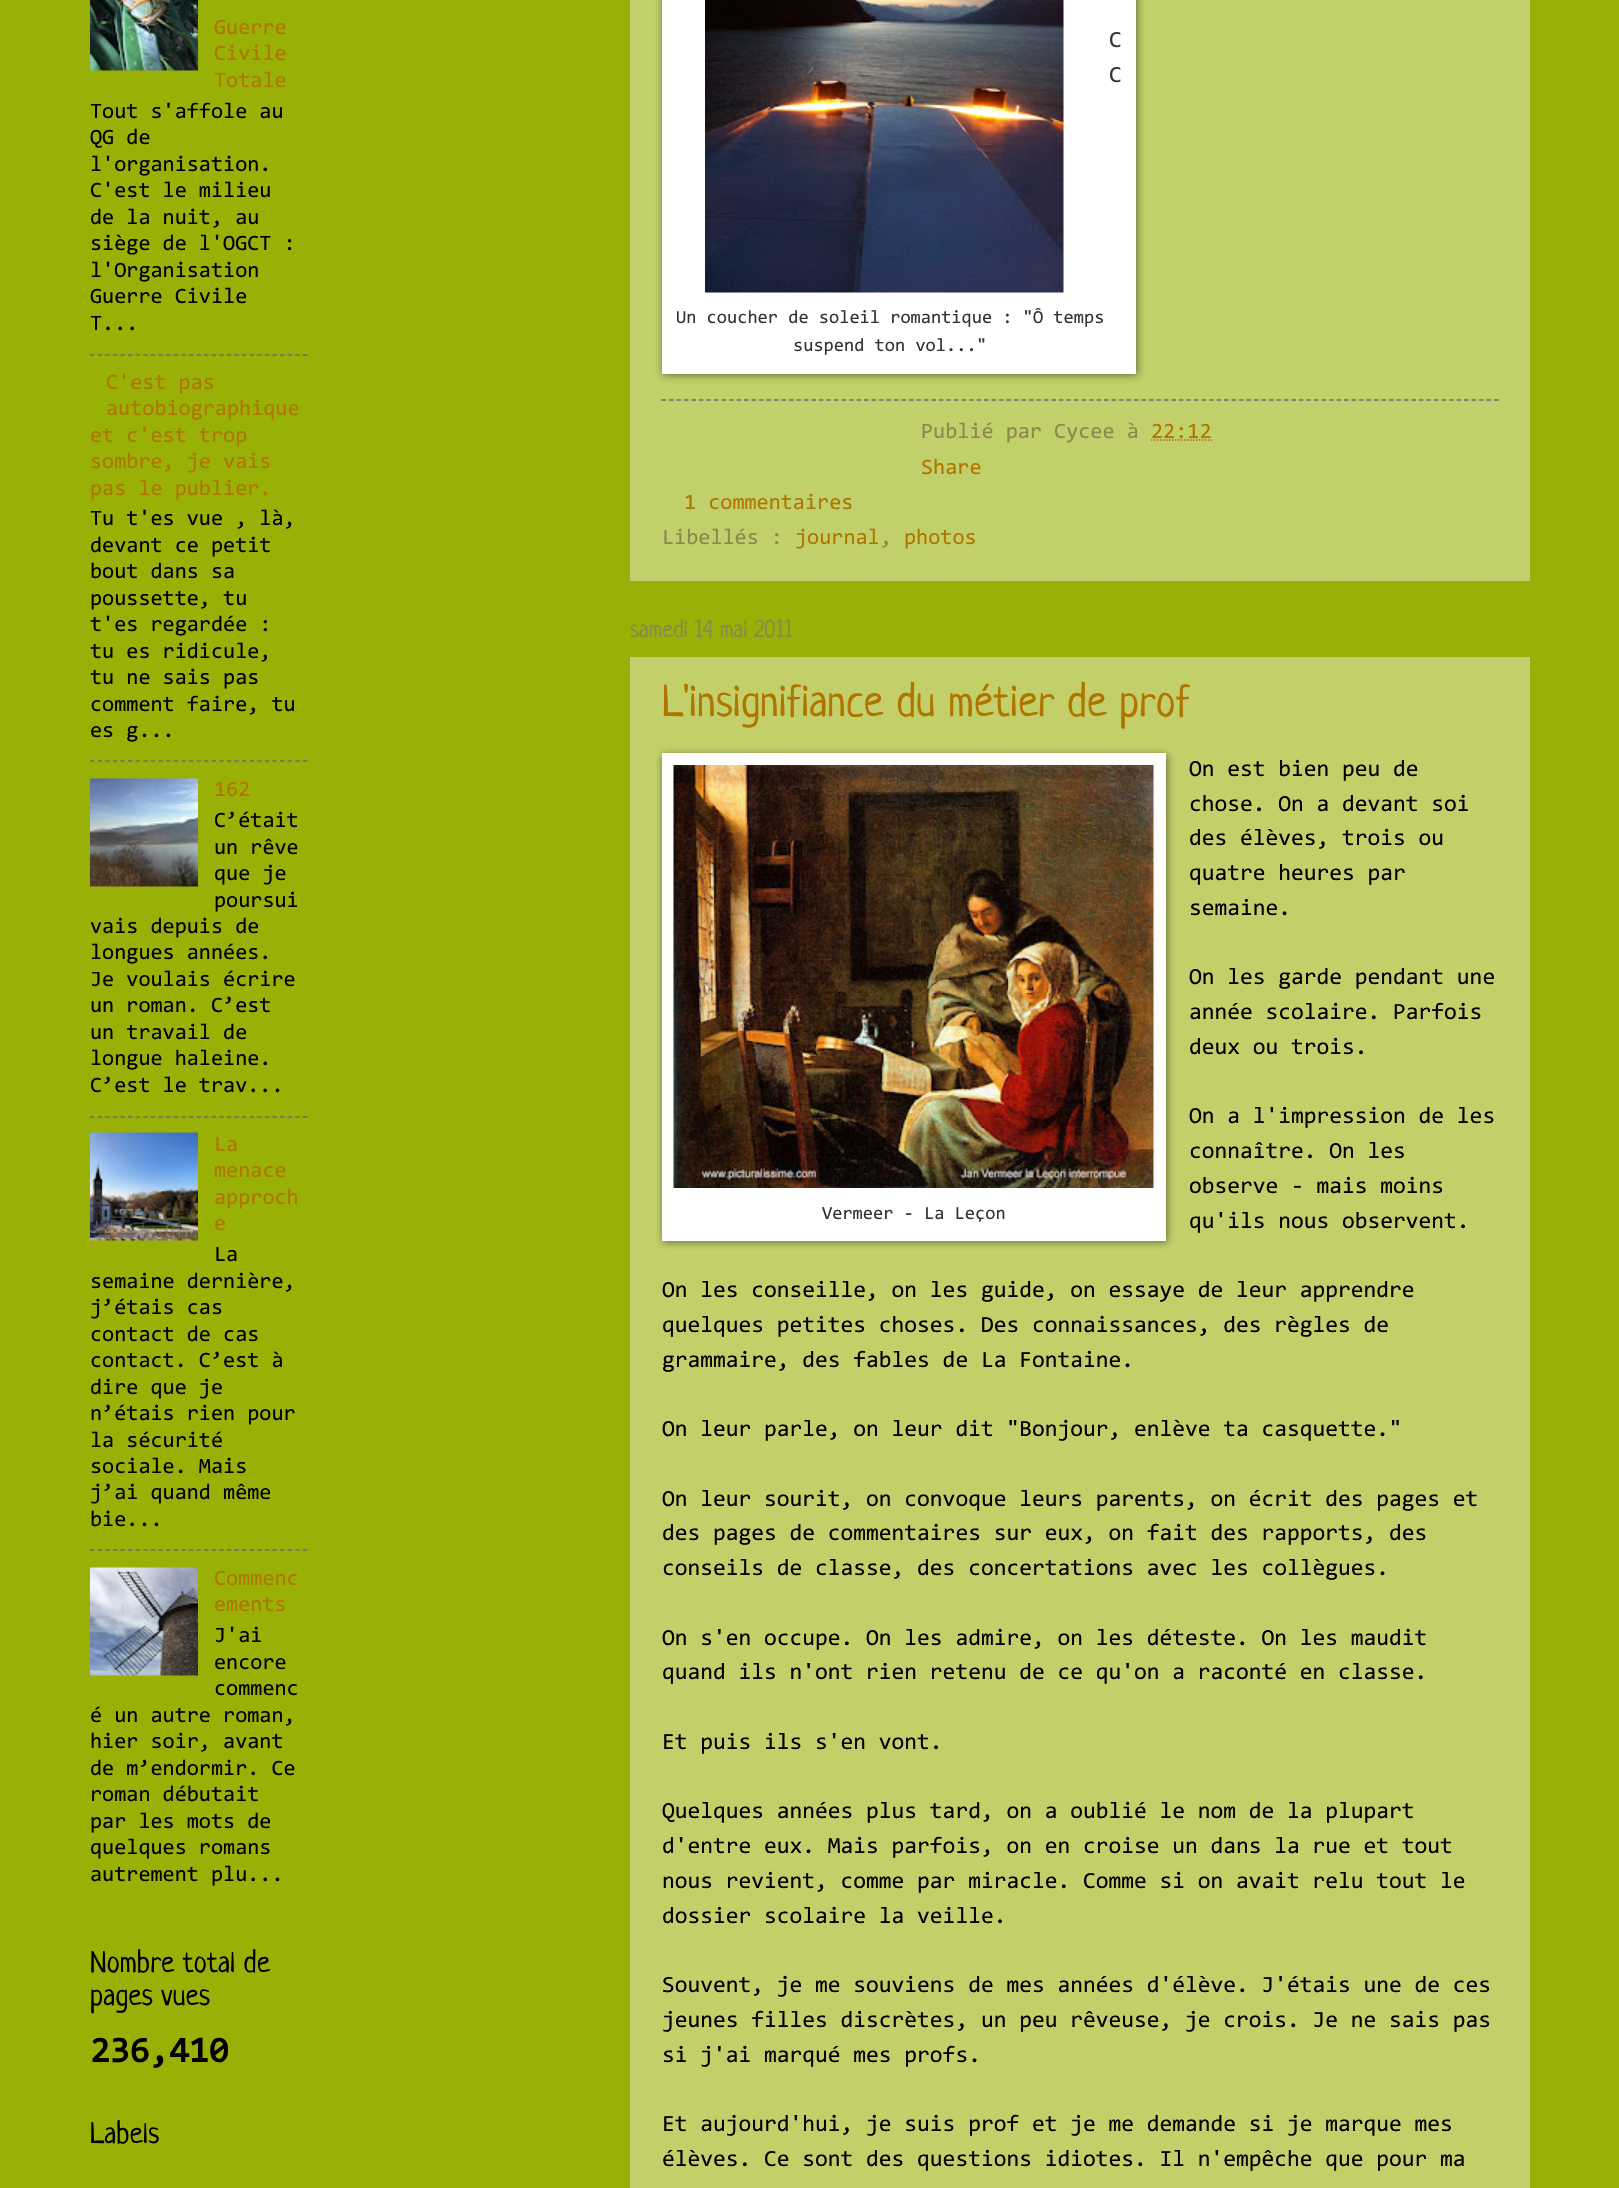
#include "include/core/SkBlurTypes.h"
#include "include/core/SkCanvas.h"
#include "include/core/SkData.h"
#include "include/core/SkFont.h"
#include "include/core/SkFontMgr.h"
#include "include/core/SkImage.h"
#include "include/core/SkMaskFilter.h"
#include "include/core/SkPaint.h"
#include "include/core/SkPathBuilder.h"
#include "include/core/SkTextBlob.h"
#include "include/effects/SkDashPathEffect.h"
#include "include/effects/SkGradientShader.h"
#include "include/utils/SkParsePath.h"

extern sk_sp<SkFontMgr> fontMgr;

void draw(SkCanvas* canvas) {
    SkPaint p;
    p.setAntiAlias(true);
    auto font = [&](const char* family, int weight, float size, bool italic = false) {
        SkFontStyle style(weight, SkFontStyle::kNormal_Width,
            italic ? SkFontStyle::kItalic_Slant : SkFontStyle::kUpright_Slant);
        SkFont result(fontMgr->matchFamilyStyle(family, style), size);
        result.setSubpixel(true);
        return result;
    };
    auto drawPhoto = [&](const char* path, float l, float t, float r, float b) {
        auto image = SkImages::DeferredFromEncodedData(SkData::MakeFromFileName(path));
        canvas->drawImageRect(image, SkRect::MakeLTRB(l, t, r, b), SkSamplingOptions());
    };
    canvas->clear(0xFF99B006);
    drawPhoto("media/1.png", 90, 0, 198, 71);
    auto font1 = font("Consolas", 400, 22);
    p.setColor(0xFFAF7500);
    {
        const struct { const char* s; float x, y; } items[] = {
            {"Guerre", 214, 34},
            {"Civile", 214, 60},
            {"Totale", 214, 87},
        };
        for (auto [s, x, y] : items) {
            canvas->drawString(s, x, y, font1, p);
        }
    }
    p.setColor(0xFF000000);
    {
        const struct { const char* s; float x, y; } items[] = {
            {"Tout s'affole au", 90, 118},
            {"QG de", 90, 144},
            {"l'organisation.", 90, 171},
            {"C'est le milieu", 90, 197},
            {"de la nuit, au", 90, 224},
            {"siège de l'OGCT :", 90, 250},
            {"l'Organisation", 90, 277},
            {"Guerre Civile", 90, 303},
            {"T...", 90, 330},
        };
        for (auto [s, x, y] : items) {
            canvas->drawString(s, x, y, font1, p);
        }
    }
    p.setStyle(SkPaint::kStroke_Style);
    p.setStrokeWidth(1.5f);
    p.setColor(0xFF6D6D6D);
    p.setPathEffect(SkDashPathEffect::Make({{4.5f, 3.1f}}, 0));
    canvas->drawPath(SkPathBuilder().moveTo(90, 355).lineTo(307.5f, 355).detach(), p);
    p.setPathEffect(nullptr);
    p.setStyle(SkPaint::kFill_Style);
    p.setColor(0xFFAF7500);
    {
        const struct { const char* s; float x, y; } items[] = {
            {"C'est pas", 106, 389},
            {"autobiographique", 106, 415},
            {"et c'est trop", 90, 442},
            {"sombre, je vais", 90, 468},
            {"pas le publier.", 90, 495},
        };
        for (auto [s, x, y] : items) {
            canvas->drawString(s, x, y, font1, p);
        }
    }
    p.setColor(0xFF000000);
    {
        const struct { const char* s; float x, y; } items[] = {
            {"Tu t'es vue , là,", 90, 525},
            {"devant ce petit", 90, 552},
            {"bout dans sa", 90, 578},
            {"poussette, tu", 90, 605},
            {"t'es regardée :", 90, 631},
            {"tu es ridicule,", 90, 658},
            {"tu ne sais pas", 90, 684},
            {"comment faire, tu", 90, 711},
            {"es g...", 90, 737},
        };
        for (auto [s, x, y] : items) {
            canvas->drawString(s, x, y, font1, p);
        }
    }
    p.setStyle(SkPaint::kStroke_Style);
    p.setColor(0xFF6D6D6D);
    p.setPathEffect(SkDashPathEffect::Make({{4.5f, 3.1f}}, 0));
    canvas->drawPath(SkPathBuilder().moveTo(90, 761).lineTo(307.5f, 761).detach(), p);
    p.setPathEffect(nullptr);
    drawPhoto("media/2.png", 90, 778, 198, 887);
    p.setStyle(SkPaint::kFill_Style);
    p.setColor(0xFFAF7500);
    canvas->drawString("162", 214, 796, font1, p);
    p.setColor(0xFF000000);
    {
        const struct { const char* s; float x, y; } items[] = {
            {"C’était", 214, 827},
            {"un rêve", 214, 854},
            {"que je", 214, 880},
            {"poursui", 214, 907},
            {"vais depuis de", 90, 933},
            {"longues années.", 90, 959},
            {"Je voulais écrire", 90, 986},
            {"un roman. C’est", 90, 1012},
            {"un travail de", 90, 1039},
            {"longue haleine.", 90, 1065},
            {"C’est le trav...", 90, 1092},
        };
        for (auto [s, x, y] : items) {
            canvas->drawString(s, x, y, font1, p);
        }
    }
    p.setStyle(SkPaint::kStroke_Style);
    p.setColor(0xFF6D6D6D);
    p.setPathEffect(SkDashPathEffect::Make({{4.5f, 3.1f}}, 0));
    canvas->drawPath(SkPathBuilder().moveTo(90, 1117).lineTo(307.5f, 1117).detach(), p);
    p.setPathEffect(nullptr);
    drawPhoto("media/3.png", 90, 1132, 198, 1241);
    p.setStyle(SkPaint::kFill_Style);
    p.setColor(0xFFAF7500);
    {
        const struct { const char* s; float x, y; } items[] = {
            {"La", 214, 1151},
            {"menace", 214, 1177},
            {"approch", 214, 1204},
            {"e", 214, 1230},
        };
        for (auto [s, x, y] : items) {
            canvas->drawString(s, x, y, font1, p);
        }
    }
    p.setColor(0xFF000000);
    {
        const struct { const char* s; float x, y; } items[] = {
            {"La", 214, 1261},
            {"semaine dernière,", 90, 1288},
            {"j’étais cas", 90, 1314},
            {"contact de cas", 90, 1341},
            {"contact. C’est à", 90, 1367},
            {"dire que je", 90, 1394},
            {"n’étais rien pour", 90, 1420},
            {"la sécurité", 90, 1447},
            {"sociale. Mais", 90, 1473},
            {"j’ai quand même", 90, 1499},
            {"bie...", 90, 1526},
        };
        for (auto [s, x, y] : items) {
            canvas->drawString(s, x, y, font1, p);
        }
    }
    p.setStyle(SkPaint::kStroke_Style);
    p.setColor(0xFF6D6D6D);
    p.setPathEffect(SkDashPathEffect::Make({{4.5f, 3.1f}}, 0));
    canvas->drawPath(SkPathBuilder().moveTo(90, 1550).lineTo(307.5f, 1550).detach(), p);
    p.setPathEffect(nullptr);
    drawPhoto("media/4.png", 90, 1567, 198, 1676);
    p.setStyle(SkPaint::kFill_Style);
    p.setColor(0xFFAF7500);
    canvas->drawString("Commenc", 214, 1585, font1, p);
    canvas->drawString("ements", 214, 1611, font1, p);
    p.setColor(0xFF000000);
    {
        const struct { const char* s; float x, y; } items[] = {
            {"J'ai", 214, 1642},
            {"encore", 214, 1669},
            {"commenc", 214, 1695},
            {"é un autre roman,", 90, 1722},
            {"hier soir, avant", 90, 1748},
            {"de m’endormir. Ce", 90, 1775},
            {"roman débutait", 90, 1801},
            {"par les mots de", 90, 1828},
            {"quelques romans", 90, 1854},
            {"autrement plu...", 90, 1881},
        };
        for (auto [s, x, y] : items) {
            canvas->drawString(s, x, y, font1, p);
        }
    }
    auto font2 = font("Neucha", 400, 30);
    canvas->drawString("Nombre total de", 90, 1972, font2, p);
    canvas->drawString("pages vues", 90, 2005, font2, p);
    auto font3 = font("Consolas", 700, 36);
    canvas->drawString("236,410", 90, 2062, font3, p);
    canvas->drawString("Labels", 90, 2143, font2, p);
    p.setColor(0xFFC1D06A);
    canvas->drawRect(SkRect::MakeLTRB(630, 0, 1530, 581), p);
    p.setStyle(SkPaint::kStroke_Style);
    p.setColor(0xFFC4C993);
    p.setPathEffect(SkDashPathEffect::Make({{1.5f, 1.5f}}, 0));
    canvas->drawPath(SkPathBuilder().moveTo(1529, -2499).lineTo(1529, 580.5f).detach(), p);
    p.setPathEffect(nullptr);
    p.setPathEffect(SkDashPathEffect::Make({{1.5f, 1.5f}}, 0));
    canvas->drawPath(SkPathBuilder().moveTo(630, 580).lineTo(1530, 580).detach(), p);
    p.setPathEffect(nullptr);
    p.setPathEffect(SkDashPathEffect::Make({{1.5f, 1.5f}}, 0));
    canvas->drawPath(SkPathBuilder().moveTo(631, -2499).lineTo(631, 580.5f).detach(), p);
    p.setPathEffect(nullptr);
    p.setStyle(SkPaint::kFill_Style);
    p.setColor(0x80000000);
    p.setMaskFilter(SkMaskFilter::MakeBlur(kNormal_SkBlurStyle, 4));
    canvas->drawRect(SkRect::MakeLTRB(663, -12, 1137, 375), p);
    p.setMaskFilter(nullptr);
    p.setColor(0xFFFFFFFF);
    canvas->drawRect(SkRect::MakeLTRB(662, 0, 1136, 374), p);
    drawPhoto("media/5.png", 705, 0, 1064, 293);
    auto font4 = font("Consolas", 400, 23.2f);
    p.setColor(0xFF333333);
    canvas->drawString("C", 1109, 47, font4, p);
    canvas->drawString("C", 1109, 82, font4, p);
    auto font5 = font("Consolas", 400, 18.55f);
    canvas->drawString("Un coucher de soleil romantique : \"Ô temps", 676, 323, font5, p);
    canvas->drawString("suspend ton vol...\"", 793, 351, font5, p);
    p.setStyle(SkPaint::kStroke_Style);
    p.setColor(0xFF6D6D6D);
    p.setPathEffect(SkDashPathEffect::Make({{4.5f, 3}}, 0));
    canvas->drawPath(SkPathBuilder().moveTo(661.5f, 400).lineTo(1498.5f, 400).detach(), p);
    p.setPathEffect(nullptr);
    p.setStyle(SkPaint::kFill_Style);
    p.setColor(0xFF8C874D);
    canvas->drawString("Publié par Cycee à", 921, 438, font1, p);
    p.setColor(0xFFAF7500);
    canvas->drawString("22:12", 1151, 438, font1, p);
    p.setStyle(SkPaint::kStroke_Style);
    p.setPathEffect(SkDashPathEffect::Make({{1.5f, 1.5f}}, 0));
    canvas->drawPath(SkPathBuilder().moveTo(1151, 440).lineTo(1212, 440).detach(), p);
    p.setPathEffect(nullptr);
    p.setStyle(SkPaint::kFill_Style);
    canvas->drawString("Share", 921, 474, font1, p);
    canvas->drawString("1 commentaires", 684, 509, font1, p);
    p.setColor(0xFF8C874D);
    canvas->drawString("Libellés :", 662, 544, font1, p);
    p.setColor(0xFFAF7500);
    canvas->drawString("journal", 795, 544, font1, p);
    p.setColor(0xFF8C874D);
    canvas->drawString(",", 880, 544, font1, p);
    p.setColor(0xFFAF7500);
    canvas->drawString("photos", 904, 544, font1, p);
    auto font6 = font("Neucha", 400, 24);
    p.setColor(0xFF8C874D);
    canvas->drawString("samedi 14 mai 2011", 630, 637, font6, p);
    p.setColor(0xFFC3D06A);
    canvas->drawRect(SkRect::MakeLTRB(630, 657, 1530, 2188), p);
    p.setStyle(SkPaint::kStroke_Style);
    p.setColor(0xFFC4C993);
    p.setPathEffect(SkDashPathEffect::Make({{1.5f, 1.5f}}, 0));
    canvas->drawPath(SkPathBuilder().moveTo(630, 658).lineTo(1530, 658).detach(), p);
    p.setPathEffect(nullptr);
    p.setPathEffect(SkDashPathEffect::Make({{1.5f, 1.5f}}, 0));
    canvas->drawPath(SkPathBuilder().moveTo(1529, 657).lineTo(1529, 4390.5f).detach(), p);
    p.setPathEffect(nullptr);
    p.setPathEffect(SkDashPathEffect::Make({{1.5f, 1.5f}}, 0));
    canvas->drawPath(SkPathBuilder().moveTo(631, 657).lineTo(631, 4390.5f).detach(), p);
    p.setPathEffect(nullptr);
    auto font7 = font("Neucha", 400, 45);
    p.setStyle(SkPaint::kFill_Style);
    p.setColor(0xFFAF7500);
    canvas->drawString("L'insignifiance du métier de prof", 662, 716, font7, p);
    p.setColor(0xFF000000);
    {
        const struct { const char* s; float x, y; } items[] = {
            {"On est bien peu de", 1189, 776},
            {"chose. On a devant soi", 1189, 811},
            {"des élèves, trois ou", 1189, 845},
            {"quatre heures par", 1189, 880},
            {"semaine.", 1189, 915},
            {"On les garde pendant une", 1189, 984},
            {"année scolaire. Parfois", 1189, 1019},
            {"deux ou trois.", 1189, 1054},
            {"On a l'impression de les", 1189, 1123},
            {"connaître. On les", 1189, 1158},
            {"observe - mais moins", 1189, 1193},
        };
        for (auto [s, x, y] : items) {
            canvas->drawString(s, x, y, font4, p);
        }
    }
    p.setColor(0x80000000);
    p.setMaskFilter(SkMaskFilter::MakeBlur(kNormal_SkBlurStyle, 4));
    canvas->drawRect(SkRect::MakeLTRB(663, 755, 1167, 1242), p);
    p.setMaskFilter(nullptr);
    p.setColor(0xFFFFFFFF);
    canvas->drawRect(SkRect::MakeLTRB(662, 753, 1166, 1241), p);
    drawPhoto("media/6.png", 673, 765, 1154, 1188);
    p.setColor(0xFF333333);
    canvas->drawString("Vermeer - La Leçon", 822, 1219, font5, p);
    p.setColor(0xFF000000);
    {
        const struct { const char* s; float x, y; } items[] = {
            {"qu'ils nous observent.", 1189, 1228},
            {"On les conseille, on les guide, on essaye de leur apprendre", 662, 1297},
            {"quelques petites choses. Des connaissances, des règles de", 662, 1332},
            {"grammaire, des fables de La Fontaine.", 662, 1367},
            {"On leur parle, on leur dit \"Bonjour, enlève ta casquette.\"", 662, 1436},
            {"On leur sourit, on convoque leurs parents, on écrit des pages et", 662, 1506},
            {"des pages de commentaires sur eux, on fait des rapports, des", 662, 1540},
            {"conseils de classe, des concertations avec les collègues.", 662, 1575},
            {"On s'en occupe. On les admire, on les déteste. On les maudit", 662, 1645},
            {"quand ils n'ont rien retenu de ce qu'on a raconté en classe.", 662, 1679},
            {"Et puis ils s'en vont.", 662, 1749},
            {"Quelques années plus tard, on a oublié le nom de la plupart", 662, 1818},
            {"d'entre eux. Mais parfois, on en croise un dans la rue et tout", 662, 1853},
            {"nous revient, comme par miracle. Comme si on avait relu tout le", 662, 1888},
            {"dossier scolaire la veille.", 662, 1923},
            {"Souvent, je me souviens de mes années d'élève. J'étais une de ces", 662, 1992},
            {"jeunes filles discrètes, un peu rêveuse, je crois. Je ne sais pas", 662, 2027},
            {"si j'ai marqué mes profs.", 662, 2062},
            {"Et aujourd'hui, je suis prof et je me demande si je marque mes", 662, 2131},
            {"élèves. Ce sont des questions idiotes. Il n'empêche que pour ma", 662, 2166},
        };
        for (auto [s, x, y] : items) {
            canvas->drawString(s, x, y, font4, p);
        }
    }
}
